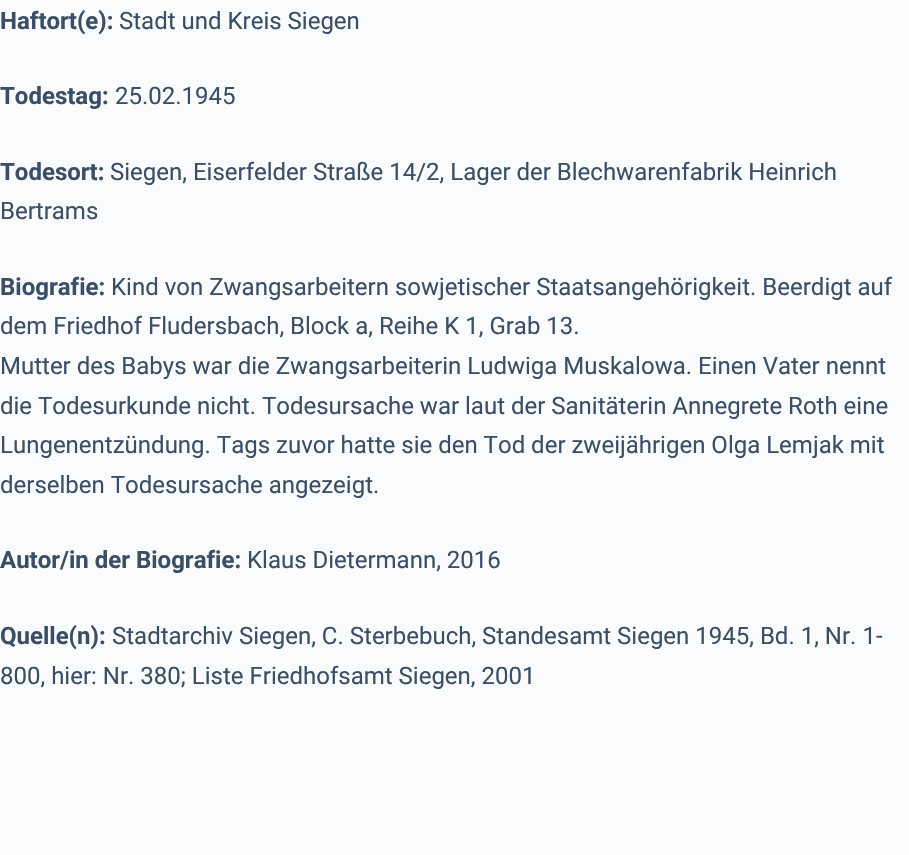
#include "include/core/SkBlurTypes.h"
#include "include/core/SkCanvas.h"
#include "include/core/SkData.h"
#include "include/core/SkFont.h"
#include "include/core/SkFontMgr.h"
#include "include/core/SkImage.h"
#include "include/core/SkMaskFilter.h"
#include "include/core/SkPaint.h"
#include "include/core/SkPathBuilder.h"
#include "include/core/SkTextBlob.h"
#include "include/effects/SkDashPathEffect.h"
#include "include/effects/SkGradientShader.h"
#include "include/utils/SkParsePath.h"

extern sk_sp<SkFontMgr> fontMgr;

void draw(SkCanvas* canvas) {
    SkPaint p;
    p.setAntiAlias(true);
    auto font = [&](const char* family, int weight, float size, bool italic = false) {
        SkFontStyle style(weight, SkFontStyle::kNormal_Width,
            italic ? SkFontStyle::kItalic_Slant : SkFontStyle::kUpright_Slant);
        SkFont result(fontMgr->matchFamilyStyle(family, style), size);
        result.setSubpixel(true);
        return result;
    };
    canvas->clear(0xFFFAFBFC);
    auto font1 = font("Roboto", 700, 24);
    p.setColor(0xFF3A4F66);
    canvas->drawString("Haftort(e):", 0, 29, font1, p);
    auto font2 = font("Roboto", 400, 24);
    canvas->drawString("Stadt und Kreis Siegen", 119, 29, font2, p);
    canvas->drawString("Todestag:", 0, 104, font1, p);
    canvas->drawString("25.02.1945", 115, 104, font2, p);
    canvas->drawString("Todesort:", 0, 180, font1, p);
    canvas->drawString("Siegen, Eiserfelder Straße 14/2, Lager der Blechwarenfabrik Heinrich", 110, 180, font2, p);
    canvas->drawString("Bertrams", 0, 219, font2, p);
    canvas->drawString("Biografie:", 0, 295, font1, p);
    {
        const struct { const char* s; float x, y; } items[] = {
            {"Kind von Zwangsarbeitern sowjetischer Staatsangehörigkeit. Beerdigt auf", 111, 295},
            {"dem Friedhof Fludersbach, Block a, Reihe K 1, Grab 13.", 0, 334},
            {"Mutter des Babys war die Zwangsarbeiterin Ludwiga Muskalowa. Einen Vater nennt", 0, 374},
            {"die Todesurkunde nicht. Todesursache war laut der Sanitäterin Annegrete Roth eine", 0, 414},
            {"Lungenentzündung. Tags zuvor hatte sie den Tod der zweijährigen Olga Lemjak mit", 0, 453},
            {"derselben Todesursache angezeigt.", 0, 493},
        };
        for (auto [s, x, y] : items) {
            canvas->drawString(s, x, y, font2, p);
        }
    }
    canvas->drawString("Autor/in der Biografie:", 0, 568, font1, p);
    canvas->drawString("Klaus Dietermann, 2016", 247, 568, font2, p);
    canvas->drawString("Quelle(n):", 0, 644, font1, p);
    canvas->drawString("Stadtarchiv Siegen, C. Sterbebuch, Standesamt Siegen 1945, Bd. 1, Nr. 1-", 112, 644, font2, p);
    canvas->drawString("800, hier: Nr. 380; Liste Friedhofsamt Siegen, 2001", 0, 684, font2, p);
}
